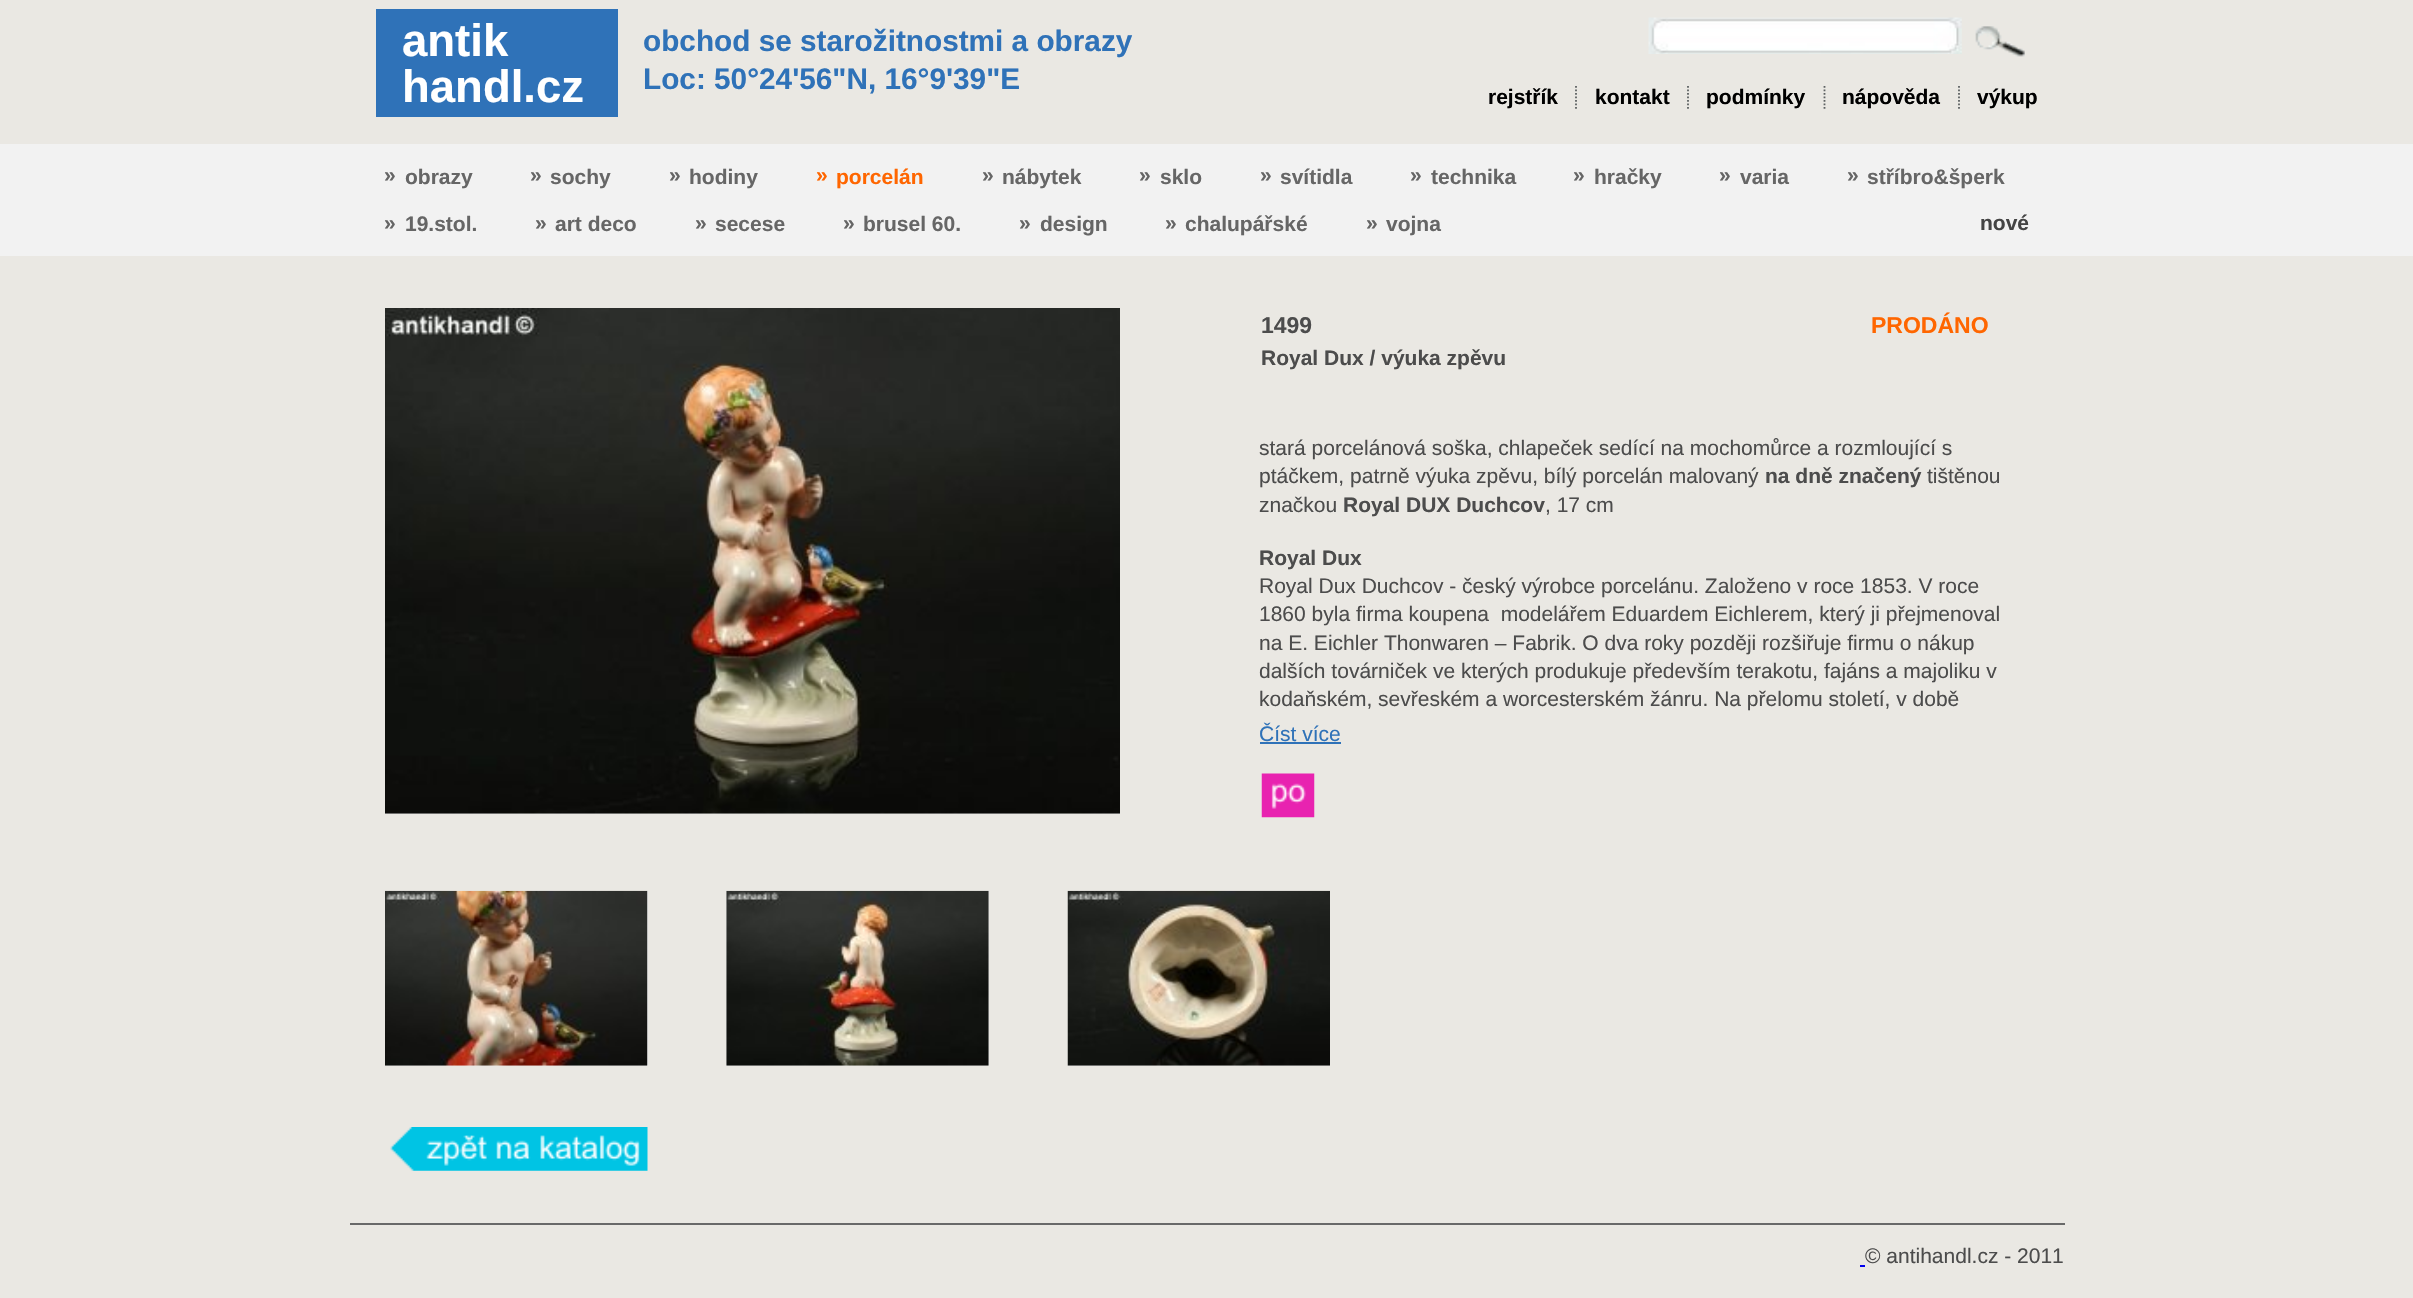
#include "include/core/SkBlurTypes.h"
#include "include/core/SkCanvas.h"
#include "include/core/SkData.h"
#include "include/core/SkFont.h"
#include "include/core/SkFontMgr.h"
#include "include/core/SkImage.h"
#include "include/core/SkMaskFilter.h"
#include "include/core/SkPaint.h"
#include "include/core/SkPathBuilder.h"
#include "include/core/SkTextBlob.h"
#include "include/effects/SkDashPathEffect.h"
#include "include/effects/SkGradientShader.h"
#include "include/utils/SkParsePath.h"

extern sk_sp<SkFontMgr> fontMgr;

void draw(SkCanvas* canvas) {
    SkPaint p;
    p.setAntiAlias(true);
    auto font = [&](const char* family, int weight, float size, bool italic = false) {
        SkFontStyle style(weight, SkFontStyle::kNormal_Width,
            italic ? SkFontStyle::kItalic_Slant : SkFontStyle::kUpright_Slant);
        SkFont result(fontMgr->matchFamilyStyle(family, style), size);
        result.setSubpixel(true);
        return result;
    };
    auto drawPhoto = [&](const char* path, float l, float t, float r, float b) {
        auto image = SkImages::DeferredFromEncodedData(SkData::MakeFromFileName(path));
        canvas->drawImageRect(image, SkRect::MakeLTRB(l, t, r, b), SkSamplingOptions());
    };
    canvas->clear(0xFFEAE8E3);
    p.setColor(0xFF2F72B8);
    canvas->drawRect(SkRect::MakeLTRB(376, 9, 618, 117), p);
    auto font1 = font("Liberation Sans", 700, 45.5f);
    p.setColor(0xFFFFFFFF);
    canvas->drawString("antik", 402, 56, font1, p);
    canvas->drawString("handl.cz", 402, 102, font1, p);
    auto font2 = font("Liberation Sans", 700, 29.75f);
    p.setColor(0xFF2F72B8);
    canvas->drawString("obchod se starožitnostmi a obrazy", 643, 51, font2, p);
    canvas->drawString("Loc: 50°24'56\"N, 16°9'39\"E", 643, 89, font2, p);
    drawPhoto("media/1.png", 1648, 17, 1962, 54);
    drawPhoto("media/2.png", 1975, 26, 2025, 57);
    auto font3 = font("Liberation Sans", 700, 21);
    p.setColor(0xFF000000);
    canvas->drawString("rejstřík", 1488, 104, font3, p);
    canvas->drawString("kontakt", 1595, 104, font3, p);
    p.setStyle(SkPaint::kStroke_Style);
    p.setStrokeWidth(1.8f);
    p.setColor(0xFF5D6162);
    p.setPathEffect(SkDashPathEffect::Make({{1.75f, 1.75f}}, 0));
    canvas->drawPath(SkPathBuilder().moveTo(1576, 86).lineTo(1576, 110).detach(), p);
    p.setPathEffect(nullptr);
    p.setStyle(SkPaint::kFill_Style);
    p.setColor(0xFF000000);
    canvas->drawString("podmínky", 1706, 104, font3, p);
    p.setStyle(SkPaint::kStroke_Style);
    p.setColor(0xFF5D6162);
    p.setPathEffect(SkDashPathEffect::Make({{1.75f, 1.75f}}, 0));
    canvas->drawPath(SkPathBuilder().moveTo(1688, 86).lineTo(1688, 110).detach(), p);
    p.setPathEffect(nullptr);
    p.setStyle(SkPaint::kFill_Style);
    p.setColor(0xFF000000);
    canvas->drawString("nápověda", 1842, 104, font3, p);
    p.setStyle(SkPaint::kStroke_Style);
    p.setColor(0xFF5D6162);
    p.setPathEffect(SkDashPathEffect::Make({{1.75f, 1.75f}}, 0));
    canvas->drawPath(SkPathBuilder().moveTo(1824.5f, 86).lineTo(1824.5f, 110).detach(), p);
    p.setPathEffect(nullptr);
    p.setStyle(SkPaint::kFill_Style);
    p.setColor(0xFF000000);
    canvas->drawString("výkup", 1977, 104, font3, p);
    p.setStyle(SkPaint::kStroke_Style);
    p.setColor(0xFF5D6162);
    p.setPathEffect(SkDashPathEffect::Make({{1.75f, 1.75f}}, 0));
    canvas->drawPath(SkPathBuilder().moveTo(1959, 86).lineTo(1959, 110).detach(), p);
    p.setPathEffect(nullptr);
    p.setStyle(SkPaint::kFill_Style);
    p.setColor(0xFFF2F2F2);
    canvas->drawRect(SkRect::MakeLTRB(0, 144, 2413, 256), p);
    p.setColor(0xFF666666);
    {
        const struct { const char* s; float x, y; } items[] = {
            {"»", 384, 182},
            {"obrazy", 405, 184},
            {"»", 530, 182},
            {"sochy", 550, 184},
            {"»", 669, 182},
            {"hodiny", 689, 184},
        };
        for (auto [s, x, y] : items) {
            canvas->drawString(s, x, y, font3, p);
        }
    }
    p.setColor(0xFFFF6600);
    canvas->drawString("»", 816, 182, font3, p);
    canvas->drawString("porcelán", 836, 184, font3, p);
    p.setColor(0xFF666666);
    {
        const struct { const char* s; float x, y; } items[] = {
            {"»", 982, 182},
            {"nábytek", 1002, 184},
            {"»", 1139, 182},
            {"sklo", 1160, 184},
            {"»", 1260, 182},
            {"svítidla", 1280, 184},
            {"»", 1410, 182},
            {"technika", 1431, 184},
            {"»", 1573, 182},
            {"hračky", 1594, 184},
            {"»", 1719, 182},
            {"varia", 1740, 184},
            {"»", 1847, 182},
            {"stříbro&šperk", 1867, 184},
            {"»", 384, 230},
            {"19.stol.", 405, 231},
            {"»", 535, 230},
            {"art deco", 555, 231},
            {"»", 695, 230},
            {"secese", 715, 231},
            {"»", 843, 230},
            {"brusel 60.", 863, 231},
            {"»", 1019, 230},
            {"design", 1040, 231},
            {"»", 1165, 230},
            {"chalupářské", 1185, 231},
            {"»", 1366, 230},
            {"vojna", 1386, 231},
        };
        for (auto [s, x, y] : items) {
            canvas->drawString(s, x, y, font3, p);
        }
    }
    p.setColor(0xFF444444);
    canvas->drawString("nové", 1980, 230, font3, p);
    p.setColor(0xFFF2F2F2);
    canvas->drawRect(SkRect::MakeLTRB(385, 813, 1120, 814), p);
    drawPhoto("media/3.png", 385, 308, 1120, 814);
    auto font4 = font("Liberation Sans", 700, 23);
    p.setColor(0xFF4C4C4C);
    canvas->drawString("1499", 1261, 333, font4, p);
    p.setColor(0xFFFF6600);
    canvas->drawString("PRODÁNO", 1871, 333, font4, p);
    p.setColor(0xFF4C4C4C);
    canvas->drawString("Royal Dux / výuka zpěvu", 1261, 365, font3, p);
    auto font5 = font("Liberation Sans", 400, 21);
    canvas->drawString("stará porcelánová soška, chlapeček sedící na mochomůrce a rozmloující s", 1259, 455, font5, p);
    canvas->drawString("ptáčkem, patrně výuka zpěvu, bílý porcelán malovaný", 1259, 483, font5, p);
    canvas->drawString("na dně značený", 1765, 483, font3, p);
    canvas->drawString("tištěnou", 1927, 483, font5, p);
    canvas->drawString("značkou", 1259, 512, font5, p);
    canvas->drawString("Royal DUX Duchcov", 1343, 512, font3, p);
    canvas->drawString(", 17 cm", 1545, 512, font5, p);
    canvas->drawString("Royal Dux", 1259, 565, font3, p);
    {
        const struct { const char* s; float x, y; } items[] = {
            {"Royal Dux Duchcov - český výrobce porcelánu. Založeno v roce 1853. V roce", 1259, 593},
            {"1860 byla firma koupena  modelářem Eduardem Eichlerem, který ji přejmenoval", 1259, 621},
            {"na E. Eichler Thonwaren – Fabrik. O dva roky později rozšiřuje firmu o nákup", 1259, 650},
            {"dalších továrniček ve kterých produkuje především terakotu, fajáns a majoliku v", 1259, 678},
            {"kodaňském, sevřeském a worcesterském žánru. Na přelomu století, v době", 1259, 706},
        };
        for (auto [s, x, y] : items) {
            canvas->drawString(s, x, y, font5, p);
        }
    }
    p.setColor(0xFF2F72B8);
    canvas->drawString("Číst více", 1259, 741, font5, p);
    canvas->drawRect(SkRect::MakeLTRB(1260, 742, 1341, 744), p);
    drawPhoto("media/4.png", 1261, 773, 1315, 818);
    p.setColor(0xFFF2F2F2);
    canvas->drawRect(SkRect::MakeLTRB(385, 891, 648, 1066), p);
    drawPhoto("media/5.png", 385, 890, 648, 1066);
    canvas->drawRect(SkRect::MakeLTRB(726, 891, 989, 1066), p);
    drawPhoto("media/6.png", 726, 890, 989, 1066);
    canvas->drawRect(SkRect::MakeLTRB(1068, 1065, 1330, 1066), p);
    drawPhoto("media/7.png", 1067, 890, 1330, 1066);
    drawPhoto("media/8.png", 390, 1127, 648, 1171);
    p.setColor(0xFF696969);
    canvas->drawRect(SkRect::MakeLTRB(350, 1223, 2065, 1225), p);
    p.setColor(0xFF4C4C4C);
    canvas->drawString("© antihandl.cz - 2011", 1865, 1263, font5, p);
    p.setColor(0xFF0000EE);
    canvas->drawRect(SkRect::MakeLTRB(1860, 1265, 1865, 1267), p);
}
